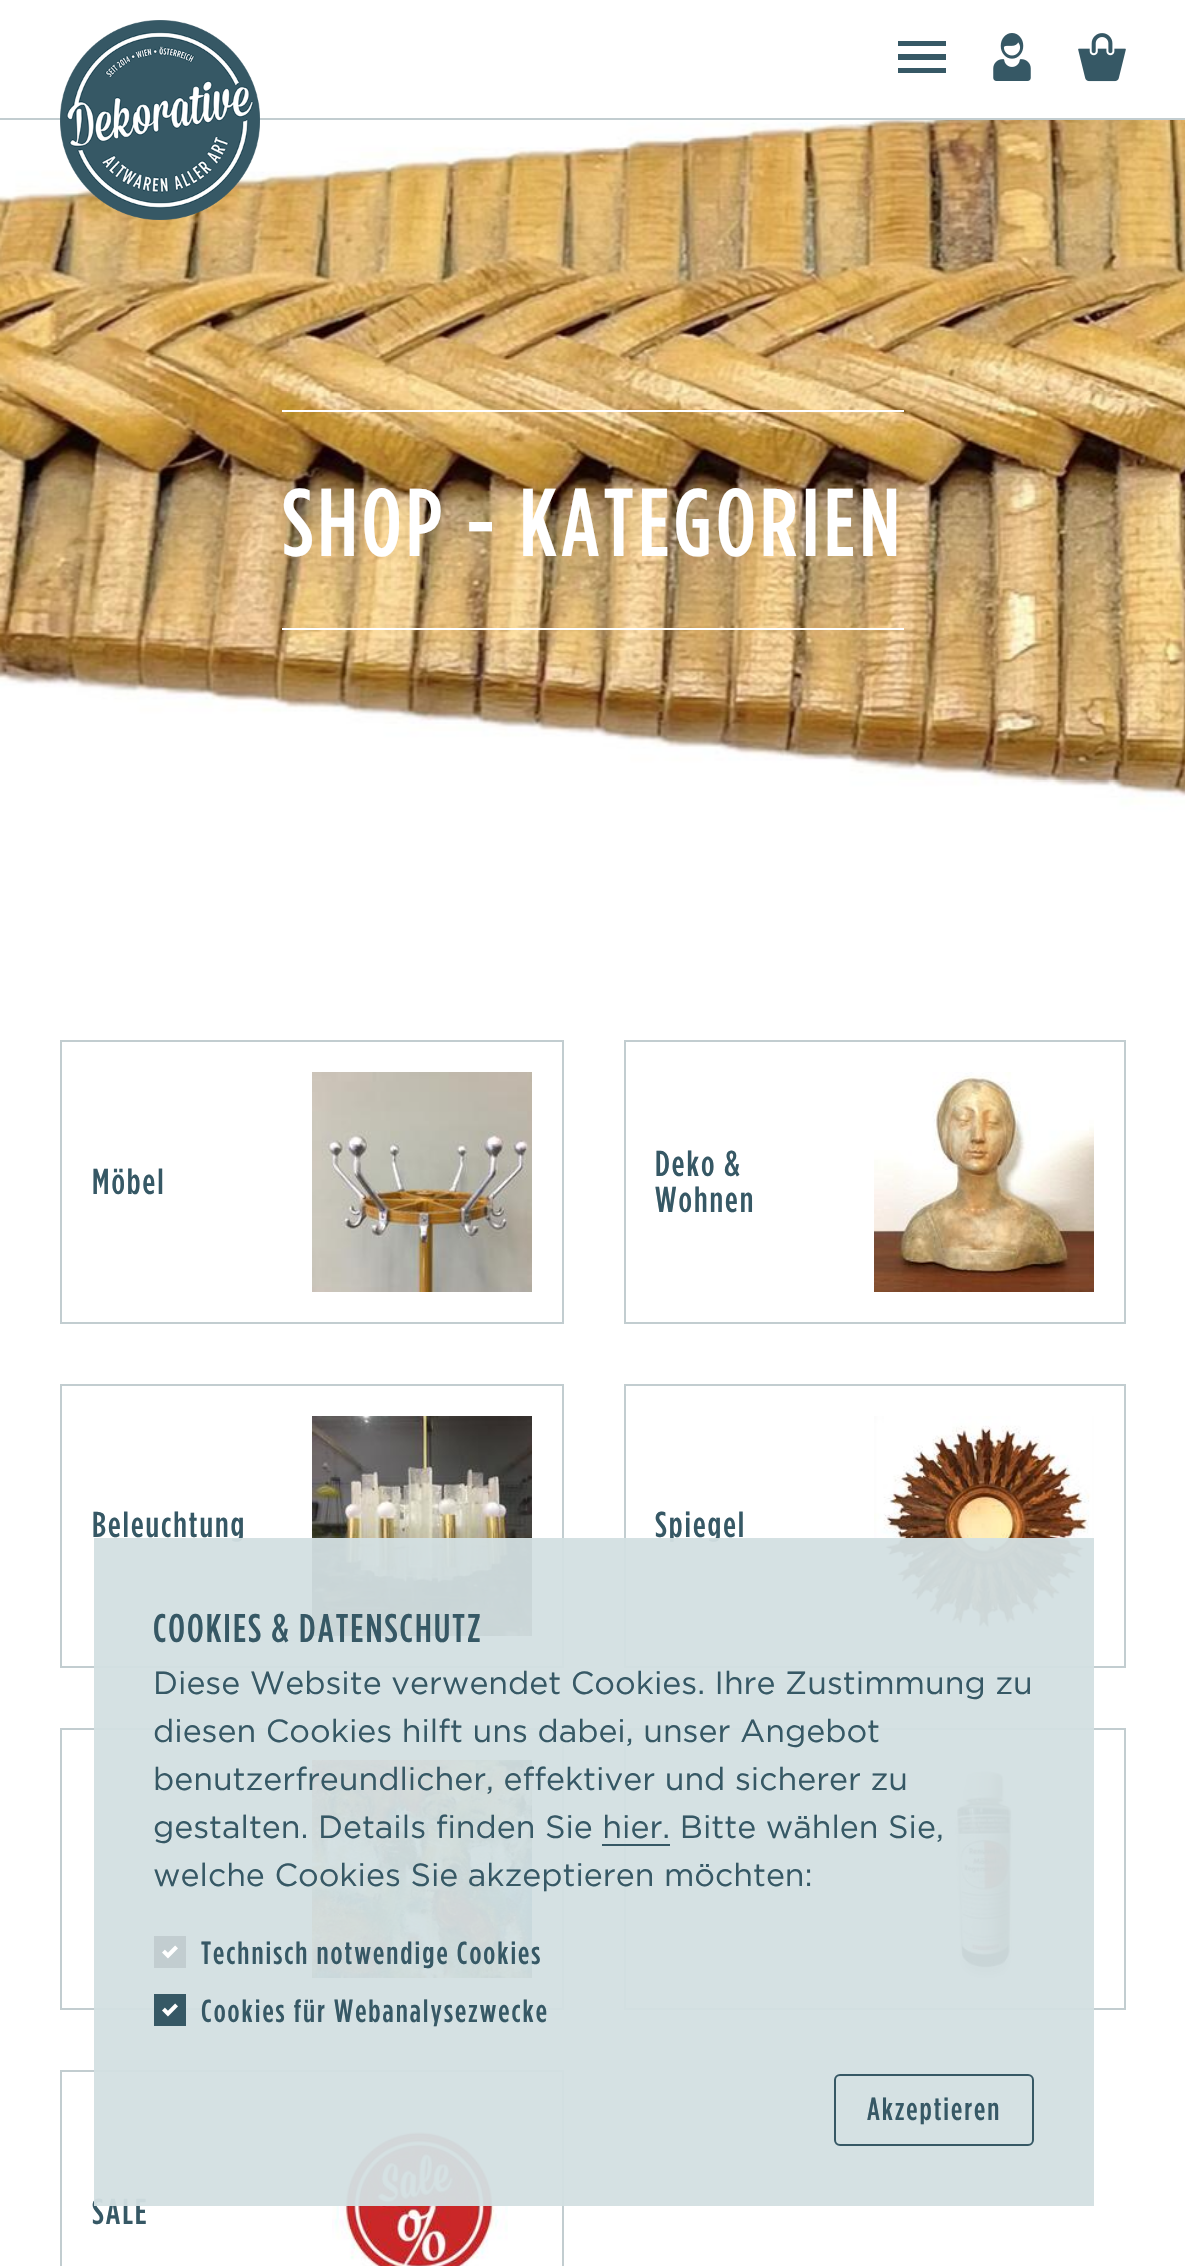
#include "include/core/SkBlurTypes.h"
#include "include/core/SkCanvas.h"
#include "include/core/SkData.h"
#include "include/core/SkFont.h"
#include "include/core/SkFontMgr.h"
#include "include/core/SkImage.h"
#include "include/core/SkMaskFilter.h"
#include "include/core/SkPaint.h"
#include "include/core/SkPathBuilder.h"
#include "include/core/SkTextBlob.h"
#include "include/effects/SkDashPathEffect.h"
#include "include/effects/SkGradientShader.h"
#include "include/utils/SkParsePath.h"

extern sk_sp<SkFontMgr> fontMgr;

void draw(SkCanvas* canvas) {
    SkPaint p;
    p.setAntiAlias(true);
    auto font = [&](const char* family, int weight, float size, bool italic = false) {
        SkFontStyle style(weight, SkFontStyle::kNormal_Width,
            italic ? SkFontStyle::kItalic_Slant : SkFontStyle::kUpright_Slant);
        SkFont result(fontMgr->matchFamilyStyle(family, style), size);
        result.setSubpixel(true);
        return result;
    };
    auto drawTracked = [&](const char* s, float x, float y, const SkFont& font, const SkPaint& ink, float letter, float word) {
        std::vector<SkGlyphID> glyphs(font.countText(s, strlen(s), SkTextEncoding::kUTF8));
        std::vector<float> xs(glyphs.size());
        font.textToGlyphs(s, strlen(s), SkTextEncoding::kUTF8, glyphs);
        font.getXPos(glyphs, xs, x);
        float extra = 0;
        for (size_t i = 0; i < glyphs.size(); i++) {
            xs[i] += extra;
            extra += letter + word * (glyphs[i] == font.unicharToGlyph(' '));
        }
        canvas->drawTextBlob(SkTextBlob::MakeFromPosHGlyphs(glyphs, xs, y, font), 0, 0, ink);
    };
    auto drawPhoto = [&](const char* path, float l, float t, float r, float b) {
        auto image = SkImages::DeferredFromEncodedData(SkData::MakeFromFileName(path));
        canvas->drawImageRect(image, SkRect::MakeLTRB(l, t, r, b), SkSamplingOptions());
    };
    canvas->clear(0xFFFFFFFF);
    p.setColor(0xFFC2CDD0);
    canvas->drawRect(SkRect::MakeLTRB(0, 118, 1185, 120), p);
    drawPhoto("media/4.png", 0, 120, 1185, 920);
    drawPhoto("media/1.png", 60, 20, 260, 220);
    p.setColor(0xFF365865);
    canvas->drawPath(SkPathBuilder().moveTo(898, 68).lineTo(946, 68).lineTo(946, 73).lineTo(898, 73).close().moveTo(898, 54).lineTo(946, 54).lineTo(946, 60).lineTo(898, 60).close().moveTo(898, 41).lineTo(946, 41).lineTo(946, 46).lineTo(898, 46).close().detach(), p);
    drawPhoto("media/2.png", 993, 33, 1031, 81);
    drawPhoto("media/3.png", 1078, 33, 1126, 82);
    p.setColor(0xFFFFFFFF);
    canvas->drawRect(SkRect::MakeLTRB(282, 410, 904, 412), p);
    canvas->drawRect(SkRect::MakeLTRB(282, 628, 904, 630), p);
    auto font1 = font("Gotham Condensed", 500, 96);
    drawTracked("SHOP - KATEGORIEN", 282, 556, font1, p, 4, 0);
    p.setStyle(SkPaint::kStroke_Style);
    p.setStrokeWidth(2);
    p.setColor(0xFFC2CDD0);
    canvas->drawRect(SkRect::MakeLTRB(61, 1041, 563, 1323), p);
    auto font2 = font("Gotham Condensed", 500, 36);
    p.setStyle(SkPaint::kFill_Style);
    p.setColor(0xFF365865);
    drawTracked("Möbel", 92, 1194, font2, p, 2, 0);
    drawPhoto("media/5.png", 312, 1072, 532, 1292);
    p.setStyle(SkPaint::kStroke_Style);
    p.setColor(0xFFC2CDD0);
    canvas->drawRect(SkRect::MakeLTRB(625, 1041, 1125, 1323), p);
    p.setStyle(SkPaint::kFill_Style);
    p.setColor(0xFF365865);
    drawTracked("Deko &", 655, 1176, font2, p, 2, 0);
    drawTracked("Wohnen", 655, 1212, font2, p, 2, 0);
    drawPhoto("media/6.png", 874, 1072, 1094, 1292);
    p.setStyle(SkPaint::kStroke_Style);
    p.setColor(0xFFC2CDD0);
    canvas->drawRect(SkRect::MakeLTRB(61, 1385, 563, 1667), p);
    p.setStyle(SkPaint::kFill_Style);
    p.setColor(0xFF365865);
    drawTracked("Beleuchtung", 92, 1537, font2, p, 2, 0);
    drawPhoto("media/7.png", 312, 1416, 532, 1636);
    p.setStyle(SkPaint::kStroke_Style);
    p.setColor(0xFFC2CDD0);
    canvas->drawRect(SkRect::MakeLTRB(625, 1385, 1125, 1667), p);
    p.setStyle(SkPaint::kFill_Style);
    p.setColor(0xFF365865);
    drawTracked("Spiegel", 655, 1537, font2, p, 2, 0);
    drawPhoto("media/8.png", 874, 1416, 1094, 1636);
    p.setStyle(SkPaint::kStroke_Style);
    p.setColor(0xFFC2CDD0);
    canvas->drawRect(SkRect::MakeLTRB(61, 1729, 563, 2009), p);
    drawPhoto("media/9.png", 312, 1760, 532, 1978);
    canvas->drawRect(SkRect::MakeLTRB(625, 1729, 1125, 2009), p);
    drawPhoto("media/10.png", 952, 1769, 1018, 1978);
    canvas->drawRect(SkRect::MakeLTRB(61, 2071, 563, 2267), p);
    p.setStyle(SkPaint::kFill_Style);
    p.setColor(0xFF365865);
    drawTracked("SALE", 92, 2224, font2, p, 2, 0);
    drawPhoto("media/11.png", 332, 2121, 508, 2266);
    p.setColor(0xF2D3DFE2);
    canvas->drawRect(SkRect::MakeLTRB(94, 1538, 1094, 2206), p);
    auto font3 = font("Gotham Condensed", 500, 40);
    p.setColor(0xFF365865);
    drawTracked("COOKIES & DATENSCHUTZ", 153, 1642, font3, p, 2, 0);
    auto font4 = font("Gotham", 400, 32);
    {
        const struct { const char* s; float x, y; } items[] = {
            {"Diese Website verwendet Cookies. Ihre Zustimmung zu", 153, 1694},
            {"diesen Cookies hilft uns dabei, unser Angebot", 153, 1742},
            {"benutzerfreundlicher, effektiver und sicherer zu", 153, 1790},
            {"gestalten. Details finden Sie hier. Bitte wählen Sie,", 153, 1838},
        };
        for (auto [s, x, y] : items) {
            canvas->drawString(s, x, y, font4, p);
        }
    }
    canvas->drawRect(SkRect::MakeLTRB(602, 1844, 670, 1846), p);
    canvas->drawString("welche Cookies Sie akzeptieren möchten:", 153, 1886, font4, p);
    p.setColor(0xFFC2CDD0);
    canvas->drawRect(SkRect::MakeLTRB(154, 1936, 186, 1968), p);
    auto font5 = font("Gotham Condensed", 500, 32);
    p.setColor(0xFF365865);
    drawTracked("Technisch notwendige Cookies", 201, 1964, font5, p, 2, 0);
    drawPhoto("media/12.png", 162, 1945, 178, 1959);
    canvas->drawRect(SkRect::MakeLTRB(154, 1994, 186, 2026), p);
    drawTracked("Cookies für Webanalysezwecke", 201, 2022, font5, p, 2, 0);
    drawPhoto("media/13.png", 162, 2003, 178, 2017);
    p.setStyle(SkPaint::kStroke_Style);
    canvas->drawRoundRect(SkRect::MakeLTRB(835, 2075, 1033, 2145), 5, 5, p);
    p.setStyle(SkPaint::kFill_Style);
    drawTracked("Akzeptieren", 867, 2120, font5, p, 2, 0);
}
